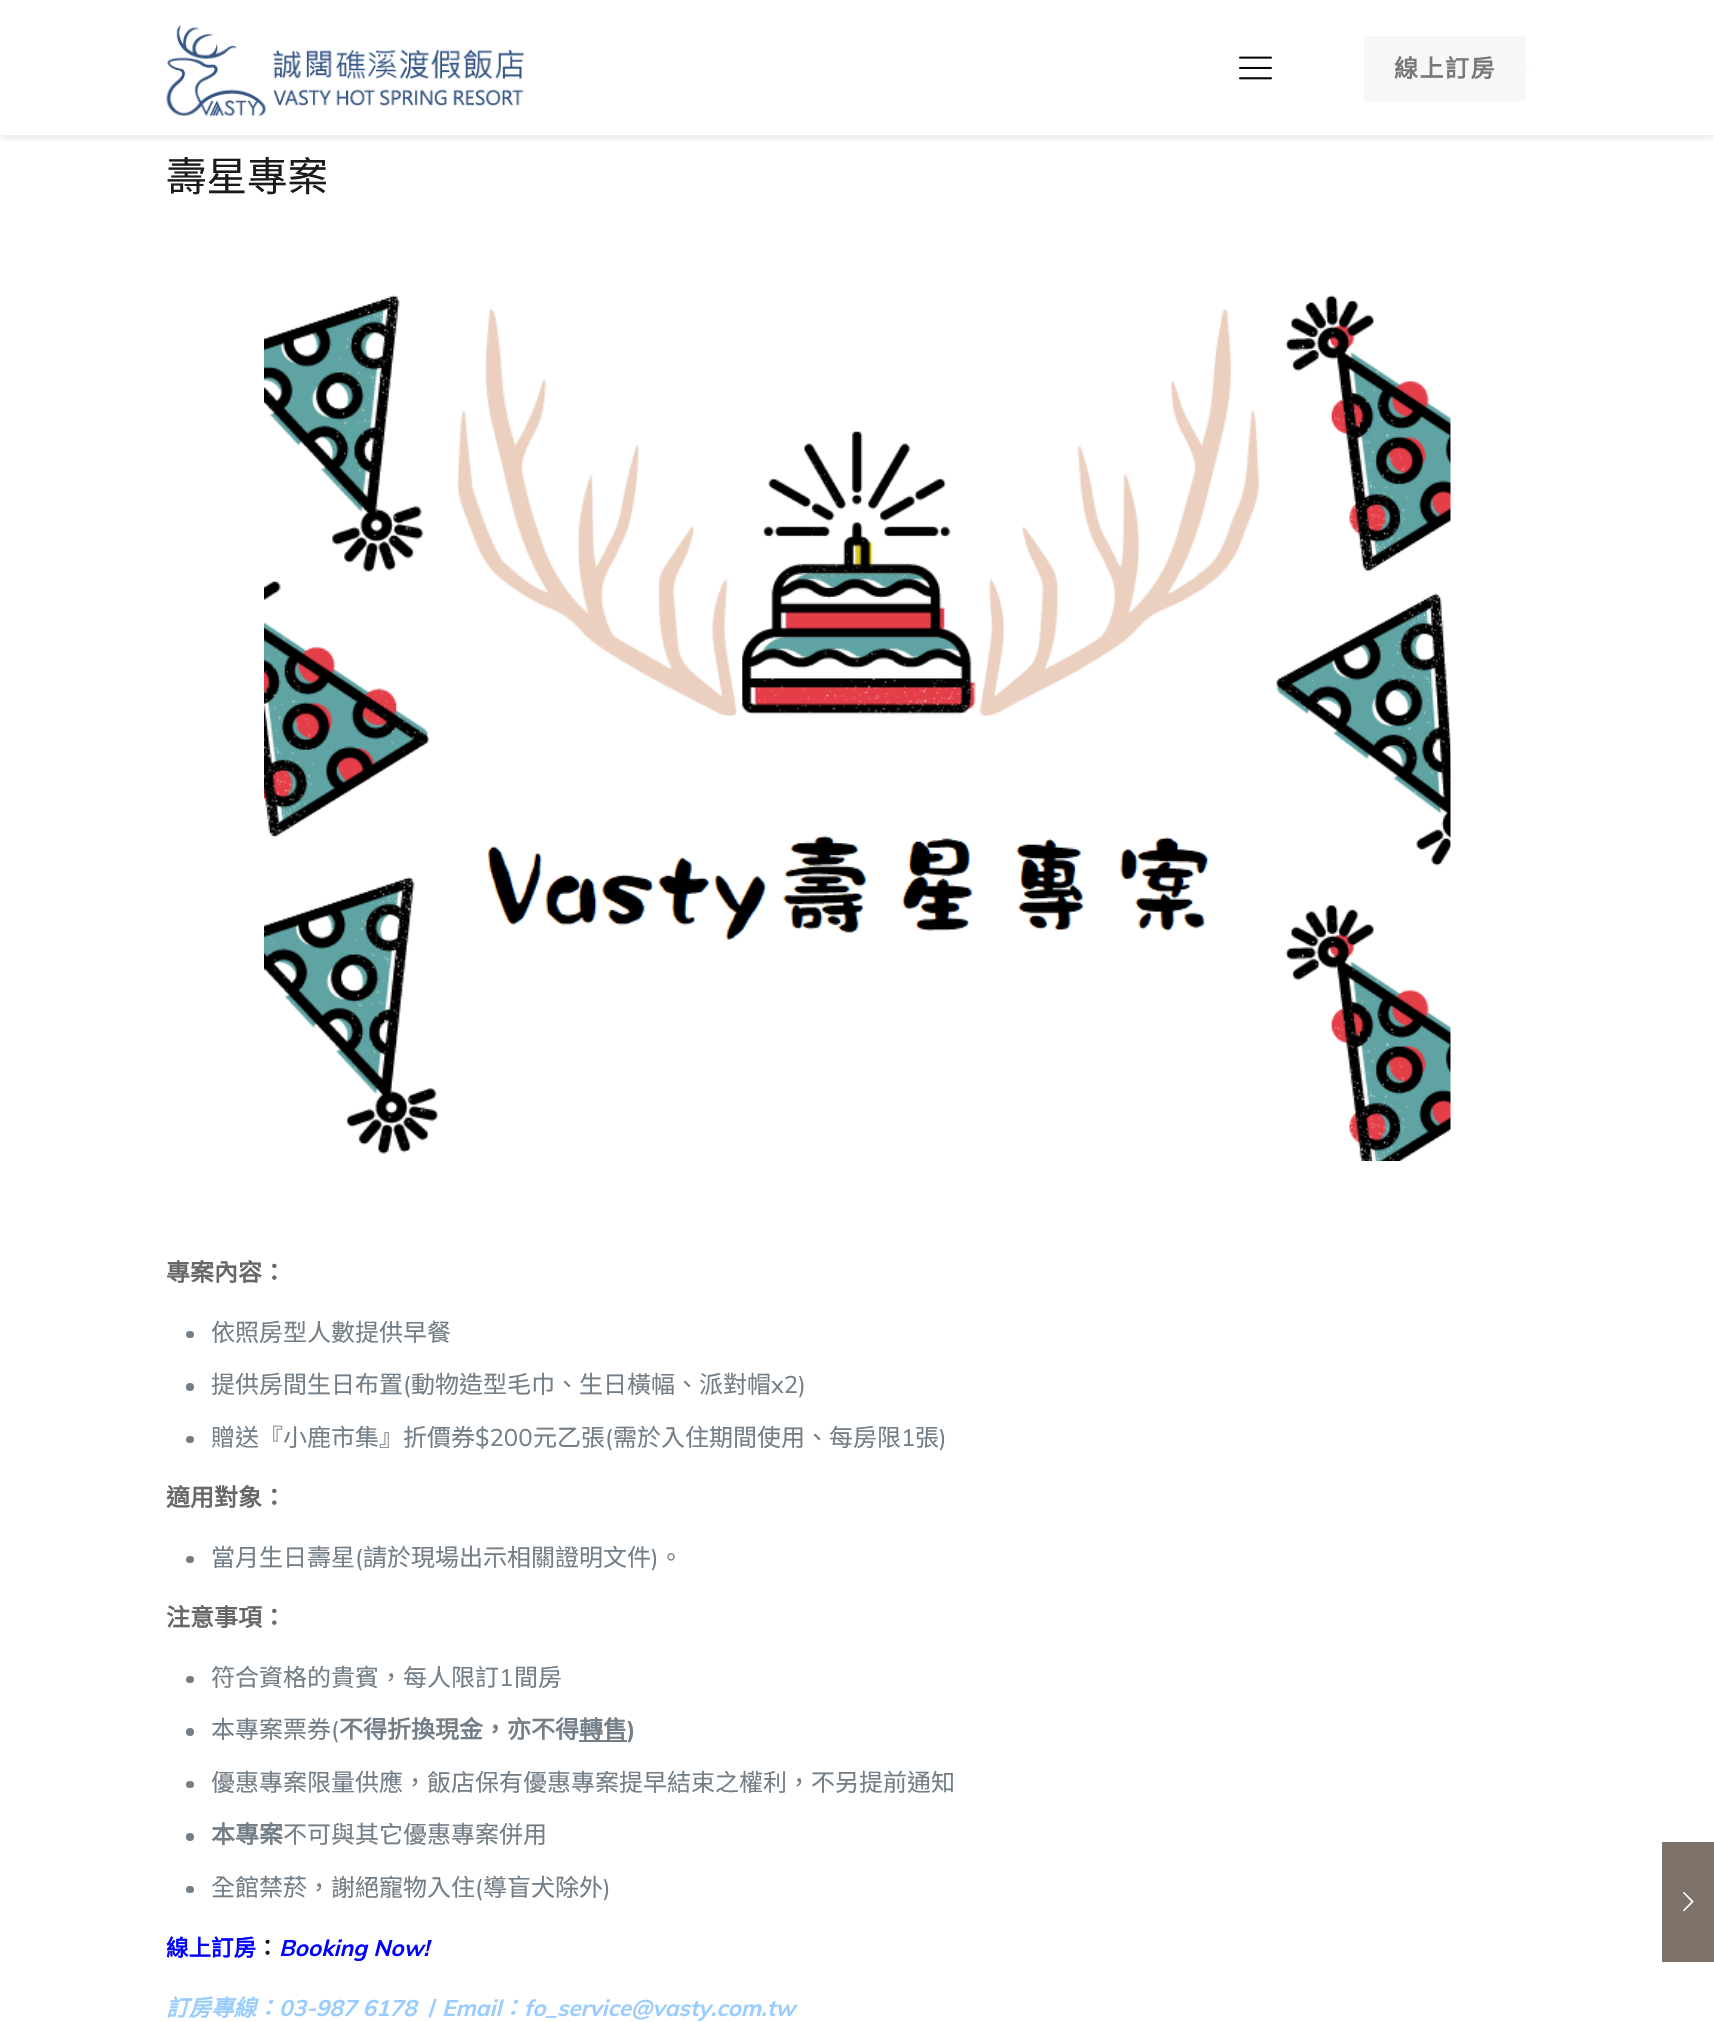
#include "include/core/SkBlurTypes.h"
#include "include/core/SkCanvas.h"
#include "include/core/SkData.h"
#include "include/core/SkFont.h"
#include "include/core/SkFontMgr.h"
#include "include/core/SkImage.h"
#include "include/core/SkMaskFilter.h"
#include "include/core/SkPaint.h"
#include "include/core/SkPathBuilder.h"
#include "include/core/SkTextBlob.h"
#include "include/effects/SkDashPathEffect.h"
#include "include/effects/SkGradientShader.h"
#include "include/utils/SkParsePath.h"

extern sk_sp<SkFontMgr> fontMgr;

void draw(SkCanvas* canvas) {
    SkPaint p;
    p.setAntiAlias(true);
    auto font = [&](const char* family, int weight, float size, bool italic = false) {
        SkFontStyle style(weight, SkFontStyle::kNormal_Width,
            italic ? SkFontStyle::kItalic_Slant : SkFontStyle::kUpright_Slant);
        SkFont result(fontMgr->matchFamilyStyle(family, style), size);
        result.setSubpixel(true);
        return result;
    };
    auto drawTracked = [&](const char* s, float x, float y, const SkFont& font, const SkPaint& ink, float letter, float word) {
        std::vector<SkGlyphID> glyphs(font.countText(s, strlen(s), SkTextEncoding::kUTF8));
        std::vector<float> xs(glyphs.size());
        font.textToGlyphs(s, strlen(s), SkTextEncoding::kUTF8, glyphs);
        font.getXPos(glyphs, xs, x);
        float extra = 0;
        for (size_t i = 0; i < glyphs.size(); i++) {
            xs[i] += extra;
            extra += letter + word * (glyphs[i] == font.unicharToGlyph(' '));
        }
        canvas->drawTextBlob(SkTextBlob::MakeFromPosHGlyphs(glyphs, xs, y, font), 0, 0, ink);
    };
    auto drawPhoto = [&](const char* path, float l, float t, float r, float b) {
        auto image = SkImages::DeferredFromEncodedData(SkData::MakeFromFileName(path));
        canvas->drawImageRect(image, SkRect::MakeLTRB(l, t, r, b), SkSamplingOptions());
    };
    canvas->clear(0xFFFFFFFF);
    drawPhoto("media/3.png", 1513, 51, 1531, 84);
    canvas->save();
    canvas->clipRect(SkRect::MakeLTRB(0, 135, 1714, 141));
    p.setColor(0x1A080808);
    p.setMaskFilter(SkMaskFilter::MakeBlur(kNormal_SkBlurStyle, 4));
    canvas->drawRect(SkRect::MakeLTRB(0, 3, 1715, 138), p);
    p.setMaskFilter(nullptr);
    canvas->restore();
    drawPhoto("media/1.png", 166, 25, 524, 116);
    drawPhoto("media/2.png", 1239, 56, 1272, 80);
    p.setColor(0xF7F7F7F7);
    canvas->drawRect(SkRect::MakeLTRB(1364, 36, 1526, 101), p);
    auto font1 = font("Noto Sans CJK TC", 700, 24);
    p.setColor(0xFF787878);
    drawTracked("線上訂房", 1394, 77, font1, p, 1.5f, 0);
    auto font2 = font("Noto Sans CJK TC", 400, 40.5f);
    p.setColor(0xFF1B1B1B);
    canvas->drawString("壽星專案", 166, 191, font2, p);
    drawPhoto("media/4.png", 264, 295, 1451, 1161);
    p.setColor(0xFF686767);
    canvas->drawString("專案內容：", 166, 1281, font1, p);
    p.setColor(0xFF737E86);
    canvas->drawRoundRect(SkRect::MakeLTRB(186, 1331, 194, 1338), 3.5f, 3.5f, p);
    auto font3 = font("Noto Sans CJK TC", 400, 24);
    canvas->drawString("依照房型人數提供早餐", 211, 1341, font3, p);
    canvas->drawCircle(190, 1387, 4, p);
    canvas->drawString("提供房間生日布置", 211, 1393, font3, p);
    auto font4 = font("Muli", 400, 24);
    canvas->drawString("(", 403, 1393, font4, p);
    canvas->drawString("動物造型毛巾、生日橫幅、派對帽", 411, 1393, font3, p);
    canvas->drawString("x2)", 771, 1393, font4, p);
    canvas->drawRoundRect(SkRect::MakeLTRB(186, 1436, 194, 1443), 3.5f, 3.5f, p);
    canvas->drawString("贈送『小鹿市集』折價券", 211, 1446, font3, p);
    canvas->drawString("$200", 475, 1446, font4, p);
    canvas->drawString("元乙張", 533, 1446, font3, p);
    canvas->drawString("(", 605, 1446, font4, p);
    canvas->drawString("需於入住期間使用、每房限", 613, 1446, font3, p);
    canvas->drawString("1", 901, 1446, font4, p);
    canvas->drawString("張", 915, 1446, font3, p);
    canvas->drawString(")", 939, 1446, font4, p);
    p.setColor(0xFF686767);
    canvas->drawString("適用對象：", 166, 1506, font1, p);
    p.setColor(0xFF737E86);
    canvas->drawRoundRect(SkRect::MakeLTRB(186, 1556, 194, 1563), 3.5f, 3.5f, p);
    canvas->drawString("當月生日壽星", 211, 1566, font3, p);
    canvas->drawString("(", 355, 1566, font4, p);
    canvas->drawString("請於現場出示相關證明文件", 363, 1566, font3, p);
    canvas->drawString(")", 651, 1566, font4, p);
    canvas->drawString("。", 659, 1566, font3, p);
    p.setColor(0xFF686767);
    canvas->drawString("注意事項：", 166, 1626, font1, p);
    p.setColor(0xFF737E86);
    canvas->drawRoundRect(SkRect::MakeLTRB(186, 1676, 194, 1683), 3.5f, 3.5f, p);
    canvas->drawString("符合資格的貴賓，每人限訂", 211, 1686, font3, p);
    canvas->drawString("1", 499, 1686, font4, p);
    canvas->drawString("間房", 514, 1686, font3, p);
    canvas->drawCircle(190, 1732, 4, p);
    canvas->drawString("本專案票券", 211, 1738, font3, p);
    canvas->drawString("(", 331, 1738, font4, p);
    canvas->drawString("不得折換現金，亦不得轉售", 339, 1738, font1, p);
    canvas->drawRect(SkRect::MakeLTRB(579, 1740, 627, 1742), p);
    auto font5 = font("Muli", 700, 24);
    canvas->drawString(")", 627, 1738, font5, p);
    canvas->drawRoundRect(SkRect::MakeLTRB(186, 1781, 194, 1788), 3.5f, 3.5f, p);
    canvas->drawString("優惠專案限量供應，飯店保有優惠專案提早結束之權利，不另提前通知", 211, 1791, font3, p);
    canvas->drawCircle(190, 1837, 4, p);
    canvas->drawString("本專案", 211, 1843, font1, p);
    canvas->drawString("不可與其它優惠專案併用", 283, 1843, font3, p);
    canvas->drawRoundRect(SkRect::MakeLTRB(186, 1886, 194, 1893), 3.5f, 3.5f, p);
    canvas->drawString("全館禁菸，謝絕寵物入住", 211, 1896, font3, p);
    canvas->drawString("(", 475, 1896, font4, p);
    canvas->drawString("導盲犬除外", 483, 1896, font3, p);
    canvas->drawString(")", 603, 1896, font4, p);
    auto font6 = font("Noto Sans CJK TC", 700, 22.5f);
    p.setColor(0xFF0000FF);
    canvas->drawString("線上訂房", 166, 1956, font6, p);
    p.setColor(0xFF1B1B1B);
    canvas->drawString("：", 256, 1956, font6, p);
    auto font7 = font("Muli", 700, 22.5f, true);
    p.setColor(0xFF0000FF);
    canvas->drawString("Booking Now!", 279, 1956, font7, p);
    auto font8 = font("Noto Sans CJK TC", 700, 22.5f, true);
    p.setColor(0xFF99CCFF);
    canvas->drawString("訂房專線：", 166, 2016, font8, p);
    canvas->drawString("03-987 6178", 279, 2016, font7, p);
    auto font9 = font("Muli", 700, 22.5f);
    canvas->drawString("/", 429, 2016, font9, p);
    canvas->drawString("Email", 442, 2016, font7, p);
    canvas->drawString("：", 501, 2016, font8, p);
    canvas->drawString("fo_service@vasty.com.tw", 524, 2016, font7, p);
    p.setColor(0xFF7C7269);
    canvas->drawRect(SkRect::MakeLTRB(1662, 1842, 1714, 1962), p);
    drawPhoto("media/5.png", 1683, 1892, 1694, 1912);
}
